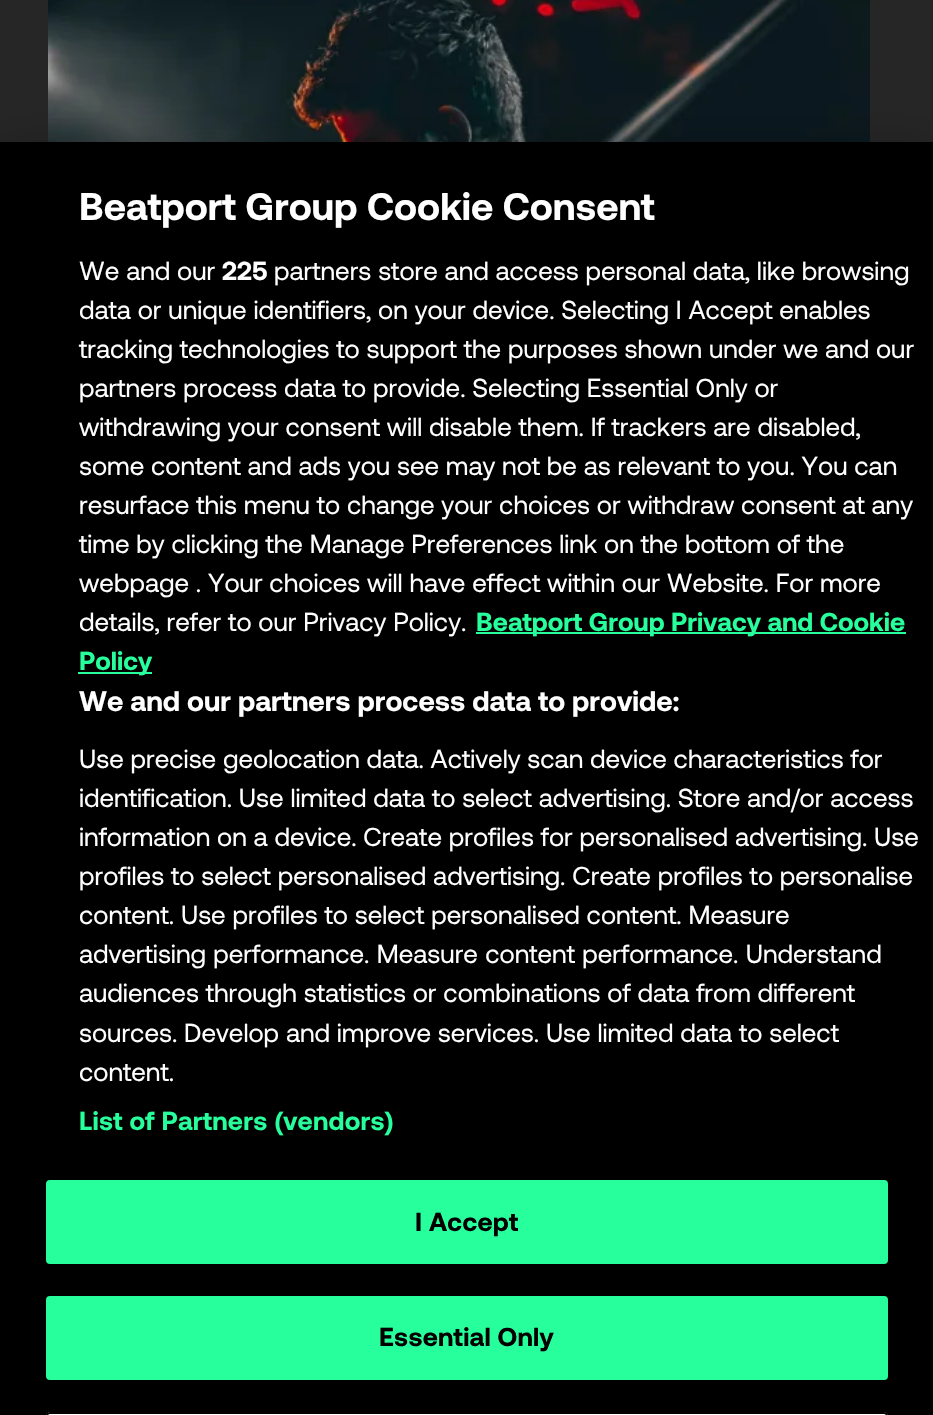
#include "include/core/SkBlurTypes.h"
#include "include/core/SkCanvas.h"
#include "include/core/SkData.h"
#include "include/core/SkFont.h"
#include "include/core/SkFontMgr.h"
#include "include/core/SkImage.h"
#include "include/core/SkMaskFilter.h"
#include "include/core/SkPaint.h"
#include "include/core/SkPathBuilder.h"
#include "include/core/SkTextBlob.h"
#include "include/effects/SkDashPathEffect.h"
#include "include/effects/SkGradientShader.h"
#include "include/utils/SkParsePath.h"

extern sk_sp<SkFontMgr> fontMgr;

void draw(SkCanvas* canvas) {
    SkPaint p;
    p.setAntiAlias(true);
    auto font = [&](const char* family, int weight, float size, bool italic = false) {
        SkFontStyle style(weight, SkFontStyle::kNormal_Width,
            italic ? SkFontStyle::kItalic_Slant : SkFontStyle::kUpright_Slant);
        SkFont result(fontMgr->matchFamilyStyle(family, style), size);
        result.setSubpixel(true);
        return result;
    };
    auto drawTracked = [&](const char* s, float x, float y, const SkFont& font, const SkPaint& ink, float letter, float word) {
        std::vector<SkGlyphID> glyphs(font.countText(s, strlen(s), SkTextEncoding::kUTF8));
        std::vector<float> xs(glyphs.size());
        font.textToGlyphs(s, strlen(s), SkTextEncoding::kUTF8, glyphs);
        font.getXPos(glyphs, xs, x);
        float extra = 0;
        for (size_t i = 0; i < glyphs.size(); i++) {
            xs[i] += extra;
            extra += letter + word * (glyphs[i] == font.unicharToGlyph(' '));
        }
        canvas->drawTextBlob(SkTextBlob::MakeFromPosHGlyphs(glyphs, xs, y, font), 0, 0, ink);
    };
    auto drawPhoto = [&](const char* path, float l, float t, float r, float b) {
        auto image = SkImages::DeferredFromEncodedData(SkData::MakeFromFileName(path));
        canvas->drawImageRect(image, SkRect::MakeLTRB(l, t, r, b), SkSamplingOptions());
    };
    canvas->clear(0xFF262626);
    drawPhoto("media/1.png", 48, 0, 870, 142);
    p.setColor(0x33000000);
    p.setMaskFilter(SkMaskFilter::MakeBlur(kNormal_SkBlurStyle, 18));
    canvas->drawRect(SkRect::MakeLTRB(0, 142, 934, 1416), p);
    p.setMaskFilter(nullptr);
    p.setColor(0xFF000000);
    canvas->drawRect(SkRect::MakeLTRB(0, 142, 933, 1415), p);
    auto font1 = font("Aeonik", 700, 38.4f);
    p.setColor(0xFFFFFFFF);
    canvas->drawString("Beatport Group Cookie Consent", 79, 220, font1, p);
    auto font2 = font("Aeonik", 400, 26);
    canvas->drawString("We and our", 79, 280, font2, p);
    auto font3 = font("Aeonik", 700, 26);
    canvas->drawString("225", 222, 280, font3, p);
    {
        const struct { const char* s; float x, y; } items[] = {
            {"partners store and access personal data, like browsing", 274, 280},
            {"data or unique identifiers, on your device. Selecting I Accept enables", 79, 319},
            {"tracking technologies to support the purposes shown under we and our", 79, 358},
            {"partners process data to provide. Selecting Essential Only or", 79, 397},
            {"withdrawing your consent will disable them. If trackers are disabled,", 79, 436},
            {"some content and ads you see may not be as relevant to you. You can", 79, 475},
            {"resurface this menu to change your choices or withdraw consent at any", 79, 514},
            {"time by clicking the Manage Preferences link on the bottom of the", 79, 553},
            {"webpage . Your choices will have effect within our Website. For more", 79, 592},
            {"details, refer to our Privacy Policy.", 79, 631},
        };
        for (auto [s, x, y] : items) {
            canvas->drawString(s, x, y, font2, p);
        }
    }
    p.setColor(0xFF27FF9C);
    canvas->drawRect(SkRect::MakeLTRB(476, 632, 906, 634), p);
    canvas->drawString("Beatport Group Privacy and Cookie", 476, 631, font3, p);
    canvas->drawRect(SkRect::MakeLTRB(78, 672, 152, 674), p);
    canvas->drawString("Policy", 79, 670, font3, p);
    auto font4 = font("Aeonik", 700, 28.2f);
    p.setColor(0xFFFFFFFF);
    canvas->drawString("We and our partners process data to provide:", 79, 711, font4, p);
    {
        const struct { const char* s; float x, y; } items[] = {
            {"Use precise geolocation data. Actively scan device characteristics for", 79, 768},
            {"identification. Use limited data to select advertising. Store and/or access", 79, 807},
            {"information on a device. Create profiles for personalised advertising. Use", 79, 846},
            {"profiles to select personalised advertising. Create profiles to personalise", 79, 885},
            {"content. Use profiles to select personalised content. Measure", 79, 924},
        };
        for (auto [s, x, y] : items) {
            canvas->drawString(s, x, y, font2, p);
        }
    }
    drawTracked("advertising performance. Measure content performance. Understand", 79, 963, font2, p, 0, 0.5f);
    {
        const struct { const char* s; float x, y; } items[] = {
            {"audiences through statistics or combinations of data from different", 79, 1002},
            {"sources. Develop and improve services. Use limited data to select", 79, 1042},
            {"content.", 79, 1081},
        };
        for (auto [s, x, y] : items) {
            canvas->drawString(s, x, y, font2, p);
        }
    }
    p.setColor(0xFF27FF9C);
    drawTracked("List of Partners (vendors)", 79, 1130, font3, p, 0.25f, 0);
    canvas->drawRoundRect(SkRect::MakeLTRB(47, 1181, 887, 1263), 3, 3, p);
    p.setStyle(SkPaint::kStroke_Style);
    p.setStrokeWidth(2);
    canvas->drawRoundRect(SkRect::MakeLTRB(47, 1181, 887, 1263), 3, 3, p);
    p.setStyle(SkPaint::kFill_Style);
    p.setColor(0xFF000000);
    drawTracked("I Accept", 415, 1231, font3, p, 0.25f, 0);
    p.setColor(0xFF27FF9C);
    canvas->drawRoundRect(SkRect::MakeLTRB(47, 1297, 887, 1379), 3, 3, p);
    p.setStyle(SkPaint::kStroke_Style);
    canvas->drawRoundRect(SkRect::MakeLTRB(47, 1297, 887, 1379), 3, 3, p);
    p.setStyle(SkPaint::kFill_Style);
    p.setColor(0xFF000000);
    drawTracked("Essential Only", 379, 1346, font3, p, 0.25f, 0);
    p.setColor(0xFFFFFFFF);
    canvas->drawPath(SkPathBuilder().moveTo(50, 1412).lineTo(884, 1412).cubicTo(886, 1412, 888, 1414, 888, 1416).lineTo(46, 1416).cubicTo(46, 1414, 48, 1412, 50, 1412).close().detach(), p);
    p.setStyle(SkPaint::kStroke_Style);
    p.setColor(0xFF000000);
    canvas->drawRoundRect(SkRect::MakeLTRB(47, 1413, 887, 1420), 3, 3, p);
}
